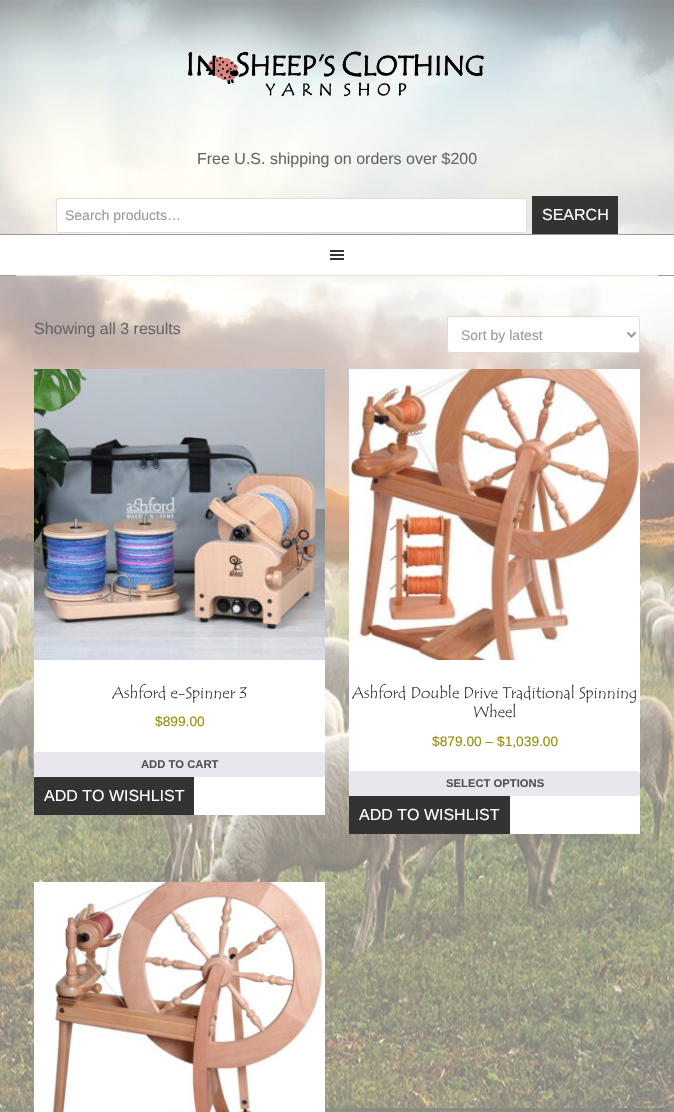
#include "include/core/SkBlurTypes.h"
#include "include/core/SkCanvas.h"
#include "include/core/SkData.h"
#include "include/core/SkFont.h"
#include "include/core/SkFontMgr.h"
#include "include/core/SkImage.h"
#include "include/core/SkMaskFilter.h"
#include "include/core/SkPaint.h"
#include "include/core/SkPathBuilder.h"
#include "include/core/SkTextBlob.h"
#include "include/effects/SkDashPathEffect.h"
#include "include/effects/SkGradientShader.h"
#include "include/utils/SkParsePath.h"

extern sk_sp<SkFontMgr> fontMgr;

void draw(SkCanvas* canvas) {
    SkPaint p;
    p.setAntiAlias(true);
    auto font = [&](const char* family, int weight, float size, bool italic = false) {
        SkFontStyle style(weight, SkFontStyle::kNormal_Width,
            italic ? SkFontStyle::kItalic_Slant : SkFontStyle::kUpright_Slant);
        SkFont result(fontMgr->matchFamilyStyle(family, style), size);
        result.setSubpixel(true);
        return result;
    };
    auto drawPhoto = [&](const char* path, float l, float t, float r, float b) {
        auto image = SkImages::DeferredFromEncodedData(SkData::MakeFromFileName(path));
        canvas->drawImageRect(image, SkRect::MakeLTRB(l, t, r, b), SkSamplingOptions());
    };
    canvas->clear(0xFFFFFFFF);
    drawPhoto("media/1.png", 0, 0, 674, 1112);
    p.setColor(0x80FFFFFF);
    canvas->drawRect(SkRect::MakeLTRB(0, 0, 674, 234), p);
    drawPhoto("media/2.png", 187, 51, 484, 97);
    auto font1 = font("Liberation Sans", 400, 16);
    p.setColor(0xFF666666);
    canvas->drawString("Free U.S. shipping on orders over $200", 197, 164, font1, p);
    p.setColor(0xFFFFFFFF);
    canvas->drawRoundRect(SkRect::MakeLTRB(56.5f, 198.5f, 526.5f, 232.5f), 2.5f, 2.5f, p);
    p.setStyle(SkPaint::kStroke_Style);
    p.setStrokeWidth(1);
    p.setColor(0xFFDDDDDD);
    canvas->drawRoundRect(SkRect::MakeLTRB(56.5f, 198.5f, 526.5f, 232.5f), 2.5f, 2.5f, p);
    auto font2 = font("Liberation Sans", 400, 14);
    p.setStyle(SkPaint::kFill_Style);
    p.setColor(0xFF999999);
    canvas->drawString("Search products…", 65, 220, font2, p);
    p.setColor(0xFF333333);
    canvas->drawRect(SkRect::MakeLTRB(532, 196, 618, 234), p);
    p.setColor(0xFFFFFFFF);
    canvas->drawString("SEARCH", 542, 220, font1, p);
    {
        const struct { float l, t, r, b; SkColor color; } items[] = {
            {0, 235, 674, 275, 0xFFFFFFFF},
            {0, 234, 674, 235, 0xFF999999},
            {0, 275, 674, 276, 0xFF999999},
            {16, 275, 658, 276, 0xFFE3E3E3},
        };
        for (auto [l, t, r, b, color] : items) {
            p.setColor(color);
            canvas->drawRect(SkRect::MakeLTRB(l, t, r, b), p);
        }
    }
    drawPhoto("media/3.png", 330, 250, 344, 260);
    p.setColor(0x80FFFFFF);
    canvas->drawRect(SkRect::MakeLTRB(0, 276, 674, 1112), p);
    p.setColor(0xFF666666);
    canvas->drawString("Showing all 3 results", 34, 334, font1, p);
    p.setColor(0xFFFFFFFF);
    canvas->drawRoundRect(SkRect::MakeLTRB(447.5f, 316.5f, 639.5f, 352.5f), 2.5f, 2.5f, p);
    p.setStyle(SkPaint::kStroke_Style);
    p.setColor(0xFFDDDDDD);
    canvas->drawRoundRect(SkRect::MakeLTRB(447.5f, 316.5f, 639.5f, 352.5f), 2.5f, 2.5f, p);
    p.setStrokeWidth(2);
    p.setColor(0xFF999999);
    canvas->drawPath(SkPathBuilder().moveTo(627.5f, 332.5f).lineTo(631.5f, 336.5f).lineTo(635.5f, 332.5f).detach(), p);
    p.setStyle(SkPaint::kFill_Style);
    canvas->drawString("Sort by latest", 461, 340, font2, p);
    p.setColor(0xFFFFFFFF);
    canvas->drawRect(SkRect::MakeLTRB(34, 660, 325, 815), p);
    drawPhoto("media/4.png", 34, 369, 325, 660);
    auto font3 = font("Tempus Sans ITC", 400, 16);
    p.setColor(0xFF333333);
    canvas->drawString("Ashford e-Spinner 3", 112, 698, font3, p);
    auto font4 = font("Liberation Sans", 400, 13.75f);
    p.setColor(0xFF958E09);
    canvas->drawString("$899.00", 155, 726, font4, p);
    p.setColor(0xFFE9E6ED);
    canvas->drawRoundRect(SkRect::MakeLTRB(34, 752, 325, 777), 3, 3, p);
    auto font5 = font("Liberation Sans", 700, 11.25f);
    p.setColor(0xFF515151);
    canvas->drawString("ADD TO CART", 141, 768, font5, p);
    p.setColor(0xFF333333);
    canvas->drawRect(SkRect::MakeLTRB(34, 777, 194, 815), p);
    p.setColor(0xFFFFFFFF);
    canvas->drawString("ADD TO WISHLIST", 44, 801, font1, p);
    canvas->drawRect(SkRect::MakeLTRB(349, 660, 640, 834), p);
    drawPhoto("media/5.png", 349, 369, 640, 660);
    p.setColor(0xFF333333);
    canvas->drawString("Ashford Double Drive Traditional Spinning", 352, 698, font3, p);
    canvas->drawString("Wheel", 473, 717, font3, p);
    p.setColor(0xFF958E09);
    canvas->drawString("$879.00 – $1,039.00", 432, 746, font4, p);
    p.setColor(0xFFE9E6ED);
    canvas->drawRoundRect(SkRect::MakeLTRB(349, 771, 640, 796), 3, 3, p);
    p.setColor(0xFF515151);
    canvas->drawString("SELECT OPTIONS", 446, 787, font5, p);
    p.setColor(0xFF333333);
    canvas->drawRect(SkRect::MakeLTRB(349, 796, 510, 834), p);
    p.setColor(0xFFFFFFFF);
    canvas->drawString("ADD TO WISHLIST", 359, 820, font1, p);
    canvas->drawRect(SkRect::MakeLTRB(34, 882, 50, 1112), p);
    drawPhoto("media/6.png", 50, 882, 325, 1112);
}
